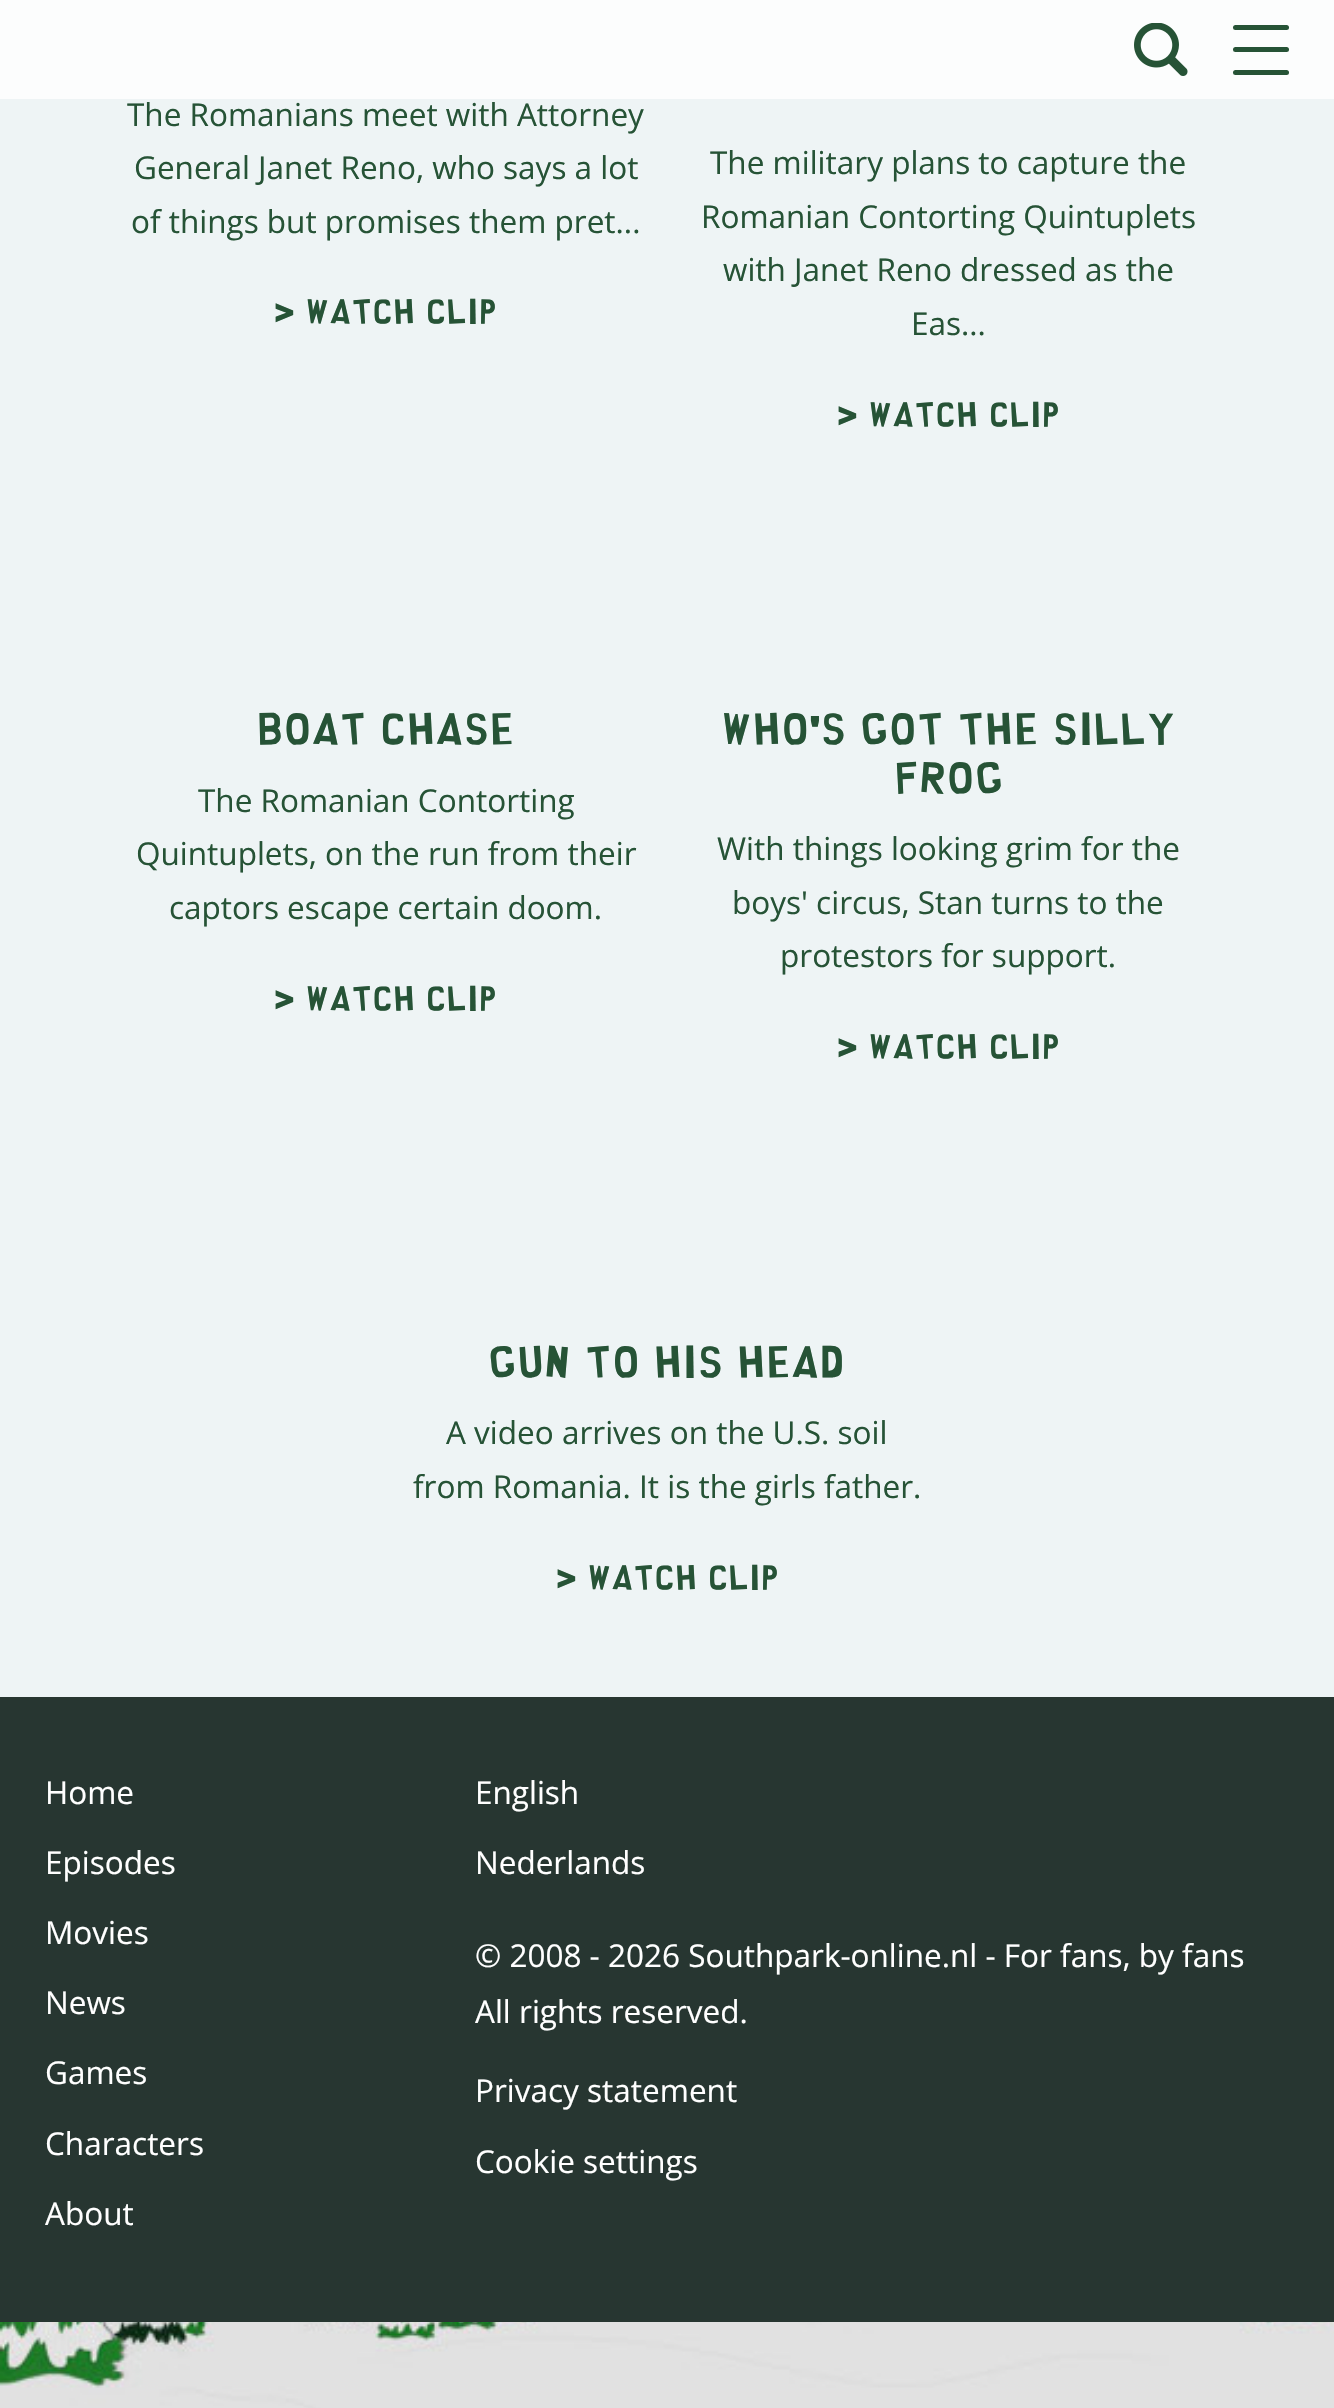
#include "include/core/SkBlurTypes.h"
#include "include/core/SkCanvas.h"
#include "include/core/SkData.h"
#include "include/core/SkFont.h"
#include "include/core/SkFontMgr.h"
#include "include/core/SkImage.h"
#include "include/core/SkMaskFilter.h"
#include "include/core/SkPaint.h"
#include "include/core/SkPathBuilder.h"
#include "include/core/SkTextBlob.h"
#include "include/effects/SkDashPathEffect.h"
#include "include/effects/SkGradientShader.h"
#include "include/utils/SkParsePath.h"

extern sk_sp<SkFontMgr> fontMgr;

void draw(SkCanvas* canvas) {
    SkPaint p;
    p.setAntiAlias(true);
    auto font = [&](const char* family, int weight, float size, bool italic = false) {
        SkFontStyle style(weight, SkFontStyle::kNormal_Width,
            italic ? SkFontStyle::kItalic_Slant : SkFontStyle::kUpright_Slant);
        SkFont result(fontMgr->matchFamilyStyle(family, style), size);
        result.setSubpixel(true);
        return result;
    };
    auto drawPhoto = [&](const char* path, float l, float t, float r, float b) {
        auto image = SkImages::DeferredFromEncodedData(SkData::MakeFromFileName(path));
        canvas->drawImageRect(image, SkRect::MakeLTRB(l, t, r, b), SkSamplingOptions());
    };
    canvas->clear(0xFFFFFFFF);
    drawPhoto("media/1.png", 0, 2322, 1334, 2408);
    p.setColor(0xFFEEF4F5);
    canvas->drawRect(SkRect::MakeLTRB(0, 0, 1334, 1697), p);
    p.setColor(0xCCFFFFFF);
    canvas->drawRect(SkRect::MakeLTRB(0, 0, 1334, 99), p);
    drawPhoto("media/2.png", 1134, 23, 1188, 76);
    p.setColor(0xFF265336);
    canvas->drawRoundRect(SkRect::MakeLTRB(1233, 25, 1289, 30), 2.5f, 2.5f, p);
    canvas->drawRoundRect(SkRect::MakeLTRB(1233, 47, 1289, 52), 2.5f, 2.5f, p);
    canvas->drawRoundRect(SkRect::MakeLTRB(1233, 70, 1289, 75), 2.5f, 2.5f, p);
    auto font1 = font("Open Sans", 400, 31.5f);
    {
        const struct { const char* s; float x, y; } items[] = {
            {"The Romanians meet with Attorney", 127, 126},
            {"General Janet Reno, who says a lot", 134, 179},
            {"of things but promises them pret...", 131, 233},
        };
        for (auto [s, x, y] : items) {
            canvas->drawString(s, x, y, font1, p);
        }
    }
    auto font2 = font("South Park", 400, 31.5f);
    canvas->drawString("> Watch clip", 274, 324, font2, p);
    {
        const struct { const char* s; float x, y; } items[] = {
            {"The military plans to capture the", 710, 174},
            {"Romanian Contorting Quintuplets", 701, 228},
            {"with Janet Reno dressed as the", 723, 281},
            {"Eas...", 911, 335},
        };
        for (auto [s, x, y] : items) {
            canvas->drawString(s, x, y, font1, p);
        }
    }
    canvas->drawString("> Watch clip", 837, 427, font2, p);
    auto font3 = font("South Park", 400, 40.5f);
    canvas->drawString("Boat Chase", 257, 745, font3, p);
    {
        const struct { const char* s; float x, y; } items[] = {
            {"The Romanian Contorting", 198, 812},
            {"Quintuplets, on the run from their", 136, 865},
            {"captors escape certain doom.", 169, 919},
        };
        for (auto [s, x, y] : items) {
            canvas->drawString(s, x, y, font1, p);
        }
    }
    canvas->drawString("> Watch clip", 274, 1011, font2, p);
    canvas->drawString("Who's Got The Silly", 721, 745, font3, p);
    canvas->drawString("Frog", 894, 794, font3, p);
    {
        const struct { const char* s; float x, y; } items[] = {
            {"With things looking grim for the", 717, 860},
            {"boys' circus, Stan turns to the", 732, 914},
            {"protestors for support.", 780, 967},
        };
        for (auto [s, x, y] : items) {
            canvas->drawString(s, x, y, font1, p);
        }
    }
    canvas->drawString("> Watch clip", 837, 1059, font2, p);
    canvas->drawString("Gun to His Head", 488, 1378, font3, p);
    canvas->drawString("A video arrives on the U.S. soil", 446, 1444, font1, p);
    canvas->drawString("from Romania. It is the girls father.", 413, 1498, font1, p);
    canvas->drawString("> Watch clip", 556, 1590, font2, p);
    p.setColor(0xFF273631);
    canvas->drawRect(SkRect::MakeLTRB(0, 1697, 1334, 2322), p);
    p.setColor(0xFFFFFFFF);
    {
        const struct { const char* s; float x, y; } items[] = {
            {"Home", 45, 1804},
            {"Episodes", 45, 1874},
            {"Movies", 45, 1944},
            {"News", 45, 2014},
            {"Games", 45, 2084},
            {"Characters", 45, 2155},
            {"About", 45, 2225},
            {"English", 475, 1804},
            {"Nederlands", 475, 1874},
            {"© 2008 - 2026 Southpark-online.nl - For fans, by fans", 475, 1967},
            {"All rights reserved.", 475, 2023},
            {"Privacy statement", 475, 2102},
            {"Cookie settings", 475, 2173},
        };
        for (auto [s, x, y] : items) {
            canvas->drawString(s, x, y, font1, p);
        }
    }
}
